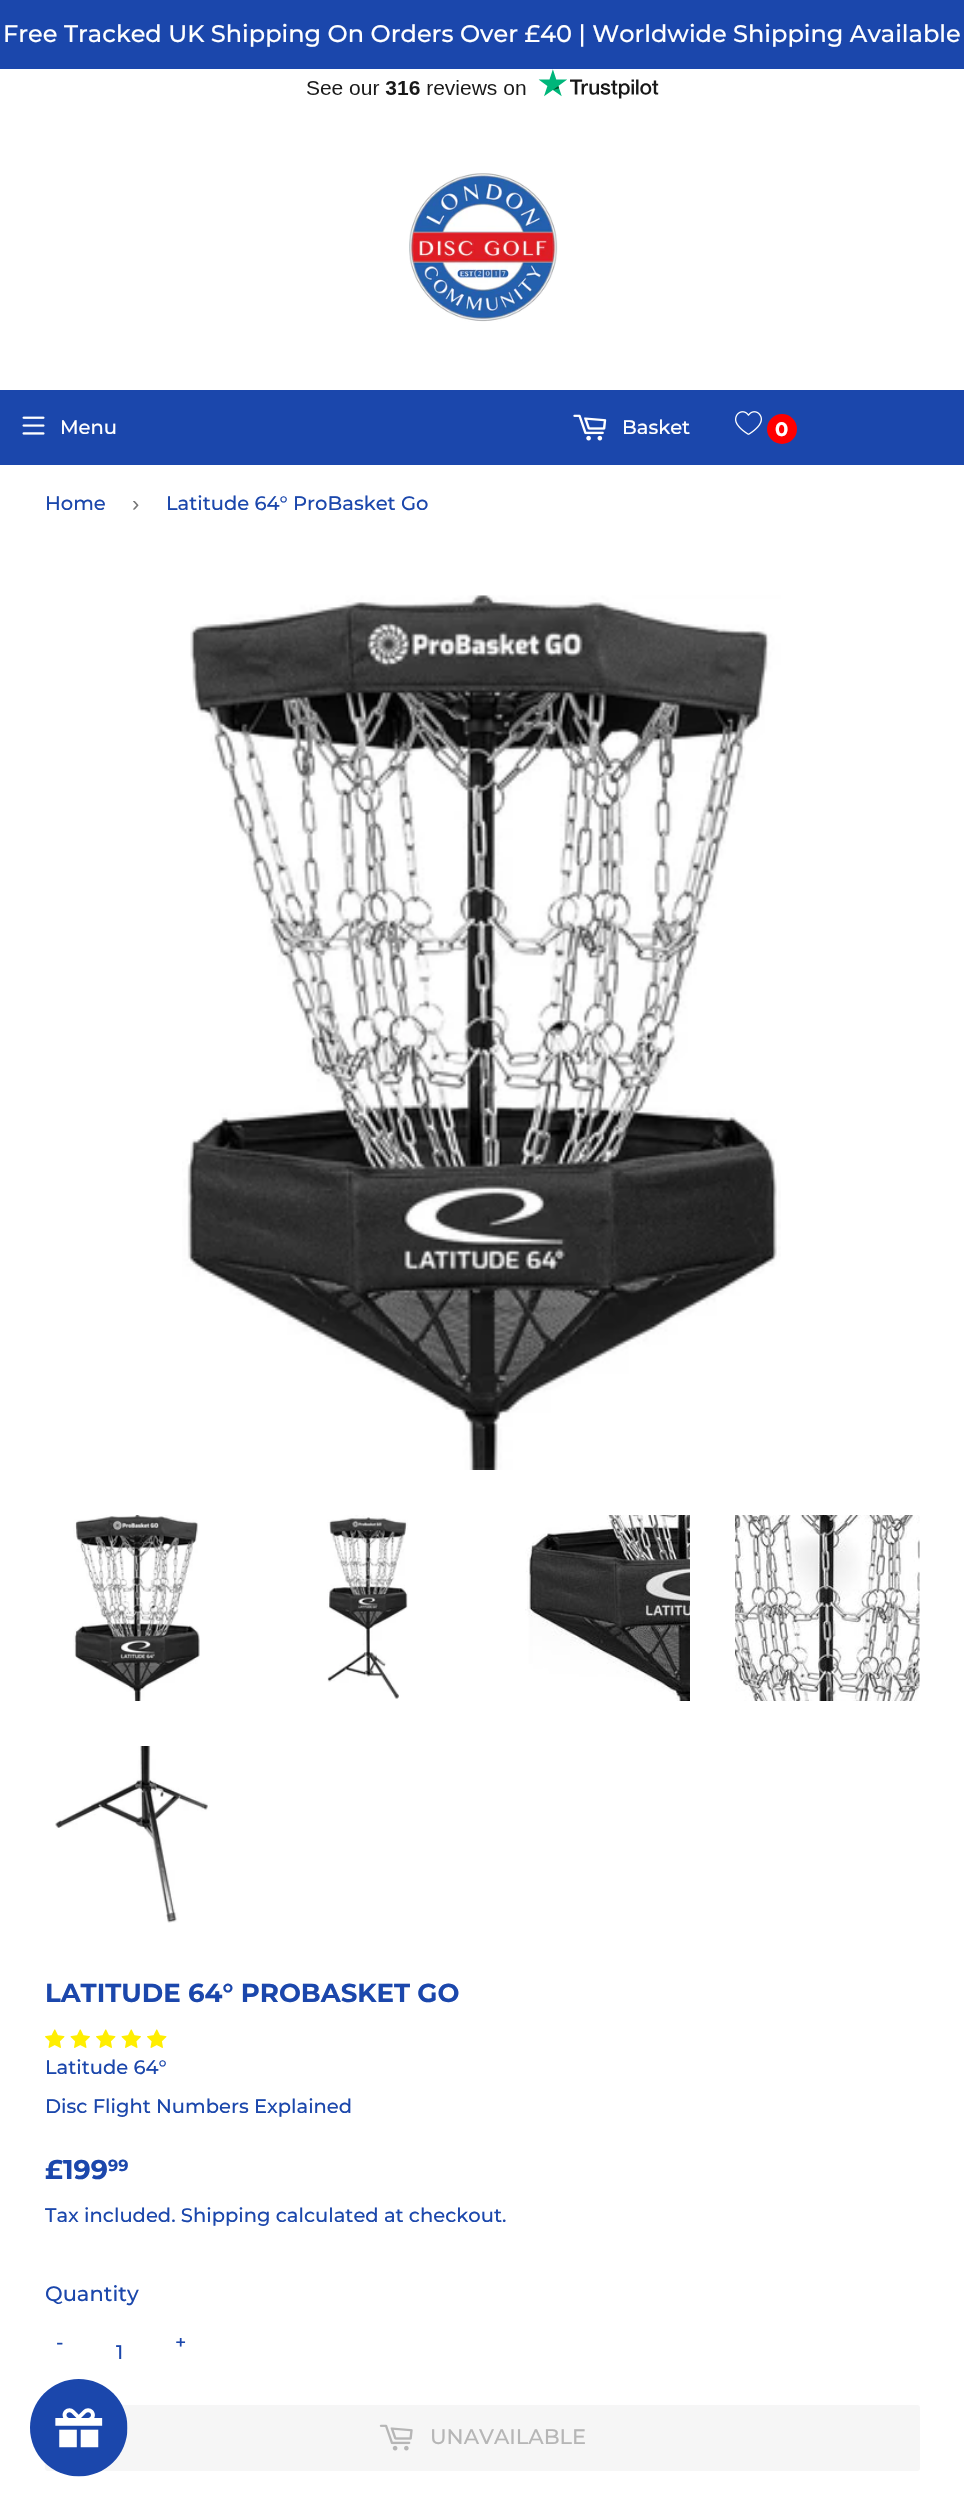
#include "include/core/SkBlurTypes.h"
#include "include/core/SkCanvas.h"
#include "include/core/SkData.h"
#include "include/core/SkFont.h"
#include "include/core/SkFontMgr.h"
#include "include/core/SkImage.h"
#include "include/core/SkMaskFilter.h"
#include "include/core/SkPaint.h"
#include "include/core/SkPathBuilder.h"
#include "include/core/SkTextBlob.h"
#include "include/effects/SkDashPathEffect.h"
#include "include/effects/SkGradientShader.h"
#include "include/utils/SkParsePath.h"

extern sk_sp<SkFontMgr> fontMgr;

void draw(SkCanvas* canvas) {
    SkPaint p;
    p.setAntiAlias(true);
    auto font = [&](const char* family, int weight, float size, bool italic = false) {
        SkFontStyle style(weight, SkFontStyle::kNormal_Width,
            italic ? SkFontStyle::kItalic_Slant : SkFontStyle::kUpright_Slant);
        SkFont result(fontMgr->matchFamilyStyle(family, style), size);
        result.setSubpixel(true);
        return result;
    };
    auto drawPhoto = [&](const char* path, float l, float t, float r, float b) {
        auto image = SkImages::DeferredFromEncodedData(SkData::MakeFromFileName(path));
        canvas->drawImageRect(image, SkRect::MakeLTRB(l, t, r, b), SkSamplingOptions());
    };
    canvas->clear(0xFFFFFFFF);
    p.setColor(0xFF1B47AC);
    canvas->drawRect(SkRect::MakeLTRB(0, 0, 964, 69), p);
    auto font1 = font("Montserrat", 500, 24);
    p.setColor(0xFFFFFFFF);
    canvas->drawString("Free Tracked UK Shipping On Orders Over £40 | Worldwide Shipping Available", 3, 42, font1, p);
    drawPhoto("media/1.png", 307, 69, 659, 99);
    drawPhoto("media/2.png", 409, 173, 558, 322);
    p.setColor(0xFF1B47AC);
    canvas->drawRect(SkRect::MakeLTRB(0, 390, 964, 465), p);
    drawPhoto("media/3.png", 22, 416, 45, 435);
    auto font2 = font("Montserrat", 500, 19.5f);
    p.setColor(0xFFFFFFFF);
    canvas->drawString("Menu", 60, 434, font2, p);
    drawPhoto("media/4.png", 573, 414, 607, 441);
    canvas->drawString("Basket", 622, 434, font2, p);
    drawPhoto("media/5.png", 735, 411, 762, 435);
    p.setColor(0xFFFF0000);
    canvas->drawCircle(782, 429, 15, p);
    auto font3 = font("Montserrat", 700, 19.5f);
    p.setColor(0xFFFFFFFF);
    canvas->drawString("0", 775, 436, font3, p);
    p.setColor(0xFF1B47AC);
    canvas->drawString("Home", 45, 510, font2, p);
    auto font4 = font("Liberation Sans", 400, 22);
    p.setColor(0xFF767676);
    canvas->drawString("›", 132, 511, font4, p);
    p.setColor(0xFF1B47AC);
    canvas->drawString("Latitude 64° ProBasket Go", 166, 510, font2, p);
    drawPhoto("media/6.png", 182, 595, 781, 1470);
    drawPhoto("media/7.png", 73, 1515, 200, 1701);
    drawPhoto("media/8.png", 327, 1515, 408, 1699);
    drawPhoto("media/9.png", 525, 1515, 690, 1701);
    drawPhoto("media/10.png", 735, 1515, 920, 1701);
    drawPhoto("media/11.png", 55, 1746, 210, 1923);
    auto font5 = font("Montserrat", 700, 26);
    canvas->drawString("LATITUDE 64° PROBASKET GO", 45, 2002, font5, p);
    drawPhoto("media/12.png", 45, 2029, 65, 2048);
    drawPhoto("media/13.png", 70, 2029, 90, 2048);
    drawPhoto("media/12.png", 96, 2029, 116, 2048);
    drawPhoto("media/13.png", 121, 2029, 141, 2048);
    drawPhoto("media/12.png", 147, 2029, 167, 2048);
    canvas->drawString("Latitude 64°", 45, 2074, font2, p);
    canvas->drawString("Disc Flight Numbers Explained", 45, 2113, font2, p);
    auto font6 = font("Montserrat", 700, 27);
    canvas->drawString("£199", 45, 2179, font6, p);
    auto font7 = font("Montserrat", 700, 16);
    canvas->drawString("99", 108, 2171, font7, p);
    canvas->drawString("Tax included. Shipping calculated at checkout.", 45, 2222, font2, p);
    auto font8 = font("Montserrat", 500, 21);
    canvas->drawString("Quantity", 45, 2301, font8, p);
    {
        const struct { const char* s; float x, y; } items[] = {
            {"-", 56, 2349},
            {"+", 175, 2349},
            {"1", 116, 2359},
        };
        for (auto [s, x, y] : items) {
            canvas->drawString(s, x, y, font2, p);
        }
    }
    p.setColor(0xFFF6F6F6);
    canvas->drawRoundRect(SkRect::MakeLTRB(45, 2405, 920, 2471), 3, 3, p);
    drawPhoto("media/14.png", 379, 2424, 413, 2451);
    p.setColor(0xFFB6B6B6);
    canvas->drawString("UNAVAILABLE", 430, 2444, font8, p);
    drawPhoto("media/15.png", 30, 2379, 128, 2477);
}
